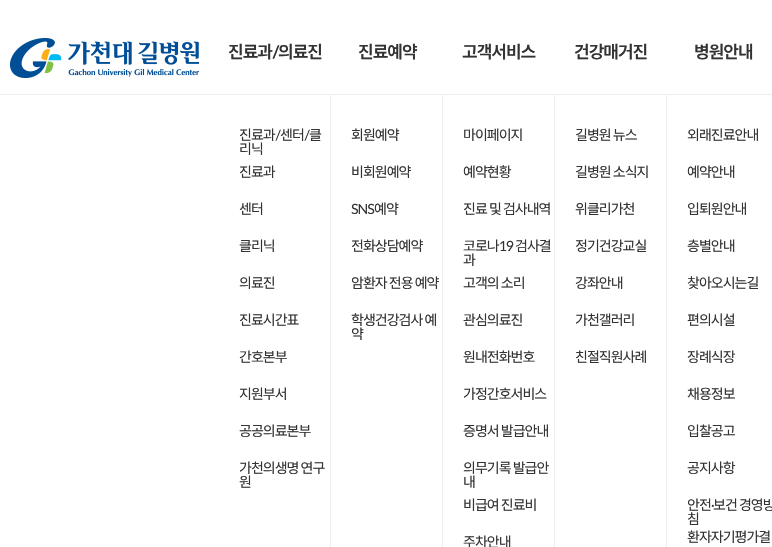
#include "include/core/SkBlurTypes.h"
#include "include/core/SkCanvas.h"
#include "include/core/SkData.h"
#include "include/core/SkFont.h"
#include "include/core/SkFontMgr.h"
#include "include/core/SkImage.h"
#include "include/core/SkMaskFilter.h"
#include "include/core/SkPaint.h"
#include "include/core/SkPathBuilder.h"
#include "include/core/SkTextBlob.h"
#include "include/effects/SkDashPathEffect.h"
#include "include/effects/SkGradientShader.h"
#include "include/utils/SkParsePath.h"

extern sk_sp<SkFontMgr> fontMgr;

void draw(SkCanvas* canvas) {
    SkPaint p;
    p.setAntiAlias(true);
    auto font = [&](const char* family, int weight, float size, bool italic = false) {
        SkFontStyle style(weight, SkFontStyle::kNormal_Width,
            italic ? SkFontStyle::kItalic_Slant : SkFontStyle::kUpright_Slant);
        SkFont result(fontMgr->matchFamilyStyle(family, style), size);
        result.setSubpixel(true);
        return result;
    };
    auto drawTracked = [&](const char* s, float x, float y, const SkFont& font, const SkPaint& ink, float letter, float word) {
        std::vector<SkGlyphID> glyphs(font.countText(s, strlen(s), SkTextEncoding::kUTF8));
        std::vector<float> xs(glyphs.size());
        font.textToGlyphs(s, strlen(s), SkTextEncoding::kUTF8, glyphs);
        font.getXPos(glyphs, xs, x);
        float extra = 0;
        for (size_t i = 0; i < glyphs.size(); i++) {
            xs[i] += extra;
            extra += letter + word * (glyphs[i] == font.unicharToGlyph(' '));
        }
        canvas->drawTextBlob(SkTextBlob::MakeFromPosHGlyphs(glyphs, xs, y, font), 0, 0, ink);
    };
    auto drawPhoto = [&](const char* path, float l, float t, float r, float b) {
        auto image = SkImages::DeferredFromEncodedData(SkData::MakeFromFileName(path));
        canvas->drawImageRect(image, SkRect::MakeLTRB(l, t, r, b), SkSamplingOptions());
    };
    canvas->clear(0xFFFFFFFF);
    drawPhoto("media/1.png", 10, 38, 199, 78);
    auto font1 = font("Noto Sans KR", 600, 17);
    p.setColor(0xFF333333);
    drawTracked("진료과", 228, 58, font1, p, -1, 0);
    auto font2 = font("Lato", 700, 17);
    drawTracked("/", 272, 58, font2, p, -1, 0);
    drawTracked("의료진", 278, 58, font1, p, -1, 0);
    p.setColor(0xFFEEEEEE);
    canvas->drawRect(SkRect::MakeLTRB(0, 94, 772, 95), p);
    canvas->drawRect(SkRect::MakeLTRB(330, 94, 331, 547), p);
    auto font3 = font("Noto Sans KR", 400, 14);
    p.setColor(0xFF333333);
    drawTracked("진료과", 239, 140, font3, p, -1, 0);
    auto font4 = font("Lato", 400, 14);
    drawTracked("/", 275, 140, font4, p, -1, 0);
    drawTracked("센터", 280, 140, font3, p, -1, 0);
    drawTracked("/", 304, 140, font4, p, -1, 0);
    {
        const struct { const char* s; float x, y; } items[] = {
            {"클", 309, 140},
            {"리닉", 239, 154},
            {"진료과", 239, 177},
            {"센터", 239, 214},
            {"클리닉", 239, 251},
            {"의료진", 239, 288},
            {"진료시간표", 239, 325},
            {"간호본부", 239, 362},
            {"지원부서", 239, 399},
            {"공공의료본부", 239, 436},
            {"가천의생명 연구", 239, 473},
            {"원", 239, 487},
        };
        for (auto [s, x, y] : items) {
            drawTracked(s, x, y, font3, p, -1, 0);
        }
    }
    drawTracked("진료예약", 358, 58, font1, p, -1, 0);
    p.setColor(0xFFEEEEEE);
    canvas->drawRect(SkRect::MakeLTRB(442, 94, 443, 547), p);
    p.setColor(0xFF333333);
    drawTracked("회원예약", 351, 140, font3, p, -1, 0);
    drawTracked("비회원예약", 351, 177, font3, p, -1, 0);
    drawTracked("SNS", 351, 214, font4, p, -1, 0);
    {
        const struct { const char* s; float x, y; } items[] = {
            {"예약", 374, 214},
            {"전화상담예약", 351, 251},
            {"암환자 전용 예약", 351, 288},
            {"학생건강검사 예", 351, 325},
            {"약", 351, 339},
        };
        for (auto [s, x, y] : items) {
            drawTracked(s, x, y, font3, p, -1, 0);
        }
    }
    drawTracked("고객서비스", 462, 58, font1, p, -1, 0);
    p.setColor(0xFFEEEEEE);
    canvas->drawRect(SkRect::MakeLTRB(554, 94, 555, 547), p);
    p.setColor(0xFF333333);
    {
        const struct { const char* s; float x, y; } items[] = {
            {"마이페이지", 463, 140},
            {"예약현황", 463, 177},
            {"진료 및 검사내역", 463, 214},
            {"코로나", 463, 251},
        };
        for (auto [s, x, y] : items) {
            drawTracked(s, x, y, font3, p, -1, 0);
        }
    }
    drawTracked("19", 499, 251, font4, p, -1, 0);
    {
        const struct { const char* s; float x, y; } items[] = {
            {"검사결", 515, 251},
            {"과", 463, 265},
            {"고객의 소리", 463, 288},
            {"관심의료진", 463, 325},
            {"원내전화번호", 463, 362},
            {"가정간호서비스", 463, 399},
            {"증명서 발급안내", 463, 436},
            {"의무기록 발급안", 463, 473},
            {"내", 463, 487},
            {"비급여 진료비", 463, 510},
            {"주차안내", 463, 547},
        };
        for (auto [s, x, y] : items) {
            drawTracked(s, x, y, font3, p, -1, 0);
        }
    }
    drawTracked("건강매거진", 574, 58, font1, p, -1, 0);
    p.setColor(0xFFEEEEEE);
    canvas->drawRect(SkRect::MakeLTRB(666, 94, 667, 547), p);
    p.setColor(0xFF333333);
    {
        const struct { const char* s; float x, y; } items[] = {
            {"길병원 뉴스", 575, 140},
            {"길병원 소식지", 575, 177},
            {"위클리가천", 575, 214},
            {"정기건강교실", 575, 251},
            {"강좌안내", 575, 288},
            {"가천갤러리", 575, 325},
            {"친절직원사례", 575, 362},
        };
        for (auto [s, x, y] : items) {
            drawTracked(s, x, y, font3, p, -1, 0);
        }
    }
    drawTracked("병원안내", 694, 58, font1, p, -1, 0);
    {
        const struct { const char* s; float x, y; } items[] = {
            {"외래진료안내", 687, 140},
            {"예약안내", 687, 177},
            {"입퇴원안내", 687, 214},
            {"층별안내", 687, 251},
            {"찾아오시는길", 687, 288},
            {"편의시설", 687, 325},
            {"장례식장", 687, 362},
            {"채용정보", 687, 399},
            {"입찰공고", 687, 436},
            {"공지사항", 687, 473},
            {"안전", 687, 510},
        };
        for (auto [s, x, y] : items) {
            drawTracked(s, x, y, font3, p, -1, 0);
        }
    }
    drawTracked("·", 711, 510, font4, p, -1, 0);
    {
        const struct { const char* s; float x, y; } items[] = {
            {"보건 경영방", 713, 510},
            {"침", 687, 524},
            {"환자자기평가결", 687, 542},
        };
        for (auto [s, x, y] : items) {
            drawTracked(s, x, y, font3, p, -1, 0);
        }
    }
}
